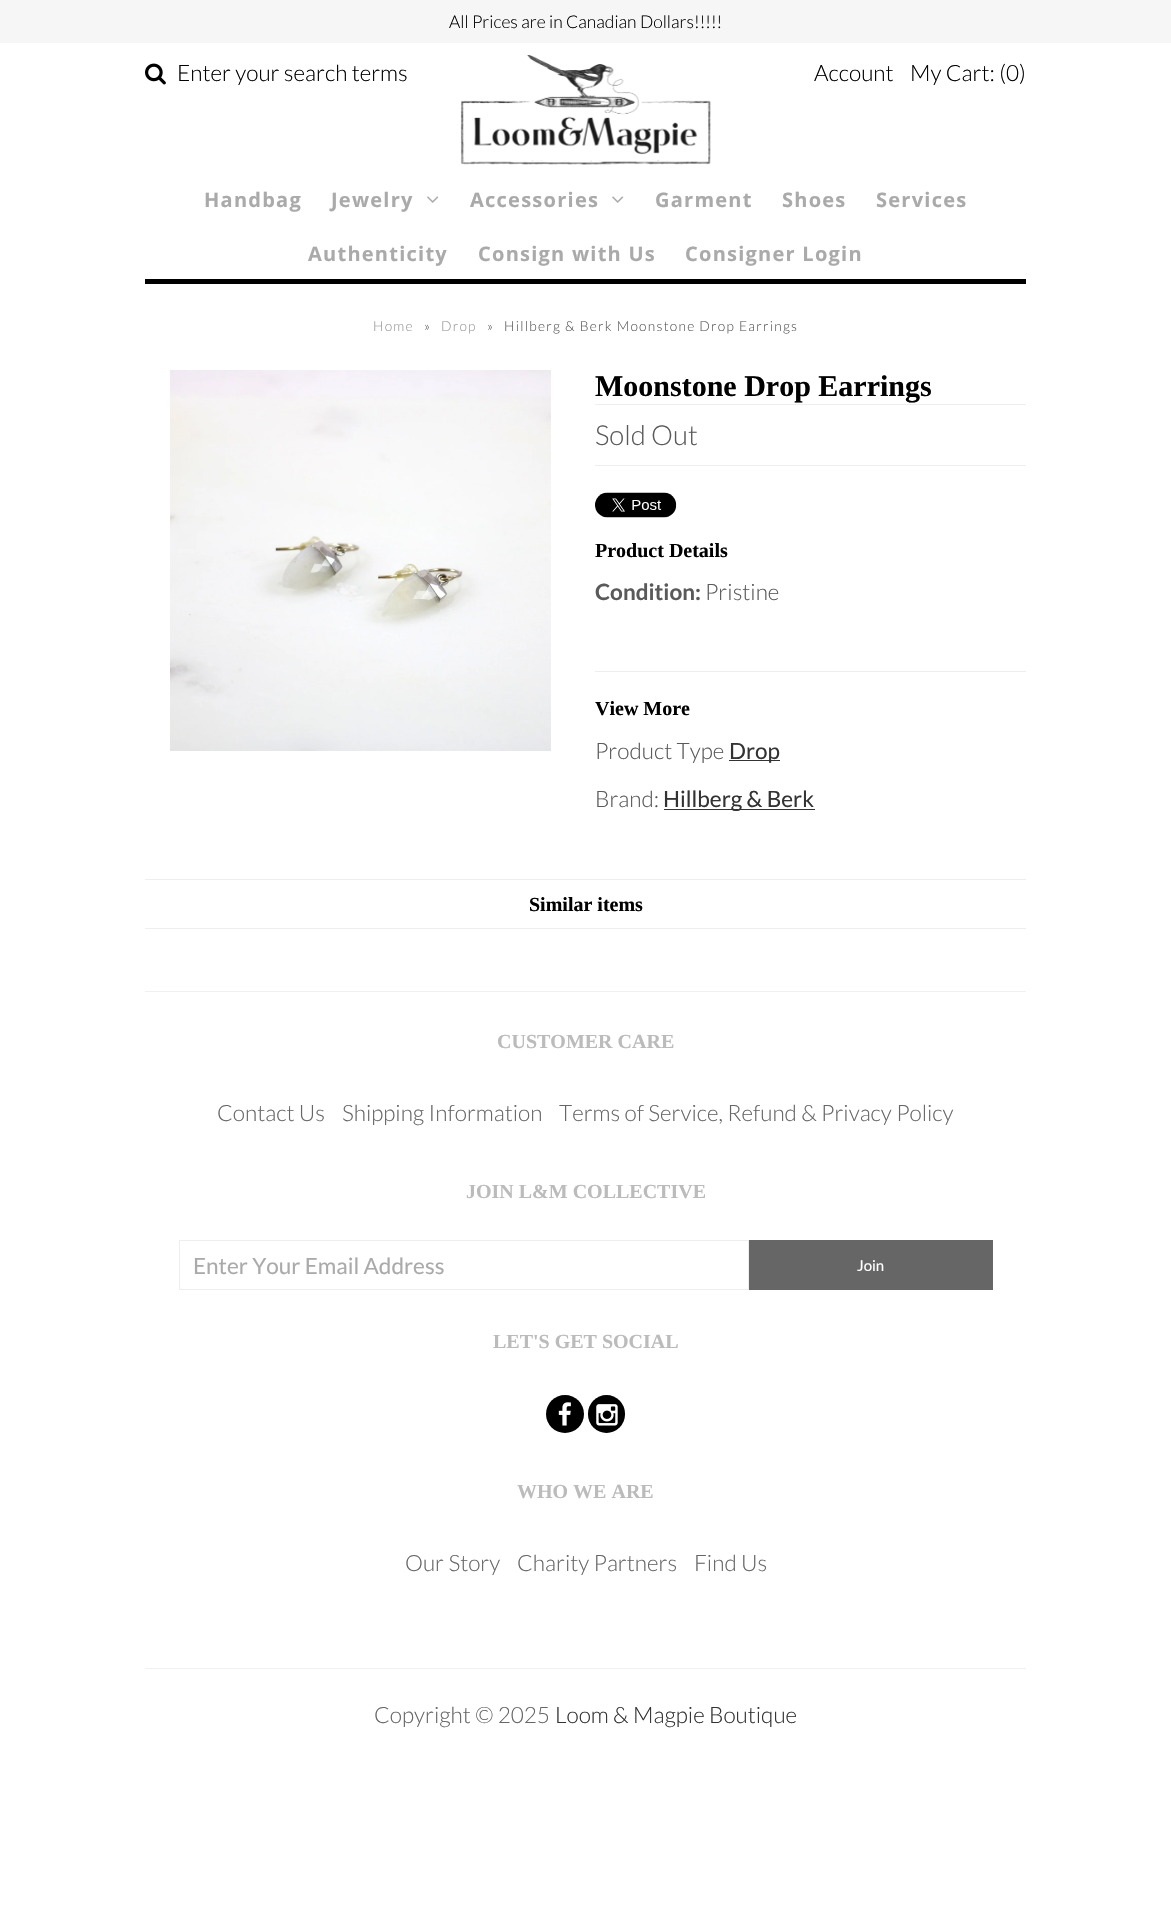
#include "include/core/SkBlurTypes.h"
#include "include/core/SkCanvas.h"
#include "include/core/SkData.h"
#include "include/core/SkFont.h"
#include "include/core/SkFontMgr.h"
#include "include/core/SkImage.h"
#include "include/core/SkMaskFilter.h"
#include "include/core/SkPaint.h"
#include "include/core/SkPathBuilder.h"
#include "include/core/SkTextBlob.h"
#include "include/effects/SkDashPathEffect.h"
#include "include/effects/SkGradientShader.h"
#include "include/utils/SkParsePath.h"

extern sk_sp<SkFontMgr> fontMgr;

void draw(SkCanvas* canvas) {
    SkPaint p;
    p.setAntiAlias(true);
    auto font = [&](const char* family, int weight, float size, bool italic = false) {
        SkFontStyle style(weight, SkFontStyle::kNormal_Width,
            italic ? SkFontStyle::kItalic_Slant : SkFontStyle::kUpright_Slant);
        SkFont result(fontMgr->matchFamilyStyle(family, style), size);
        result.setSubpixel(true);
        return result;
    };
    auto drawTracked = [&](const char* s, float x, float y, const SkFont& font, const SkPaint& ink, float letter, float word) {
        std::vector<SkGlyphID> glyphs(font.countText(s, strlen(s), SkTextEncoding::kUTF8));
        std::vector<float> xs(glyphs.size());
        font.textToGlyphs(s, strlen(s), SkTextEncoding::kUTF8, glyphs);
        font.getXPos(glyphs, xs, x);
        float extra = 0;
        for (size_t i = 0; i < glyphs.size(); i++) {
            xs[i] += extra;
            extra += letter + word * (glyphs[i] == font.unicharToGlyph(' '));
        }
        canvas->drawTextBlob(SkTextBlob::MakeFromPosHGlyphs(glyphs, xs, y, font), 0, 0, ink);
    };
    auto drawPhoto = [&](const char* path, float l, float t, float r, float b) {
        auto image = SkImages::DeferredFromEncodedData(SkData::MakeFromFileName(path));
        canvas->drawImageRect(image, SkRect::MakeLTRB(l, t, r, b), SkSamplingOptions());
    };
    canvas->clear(0xFFFFFFFF);
    p.setColor(0xFFF6F6F6);
    canvas->drawRect(SkRect::MakeLTRB(0, 0, 1171, 43), p);
    auto font1 = font("Lato", 300, 17.5f);
    p.setColor(0xFF000000);
    canvas->drawString("All Prices are in Canadian Dollars!!!!!", 449, 28, font1, p);
    drawPhoto("media/1.png", 145, 63, 166, 85);
    auto font2 = font("Lato", 300, 22.5f);
    canvas->drawString("Enter your search terms", 177, 81, font2, p);
    drawPhoto("media/2.png", 460, 55, 711, 165);
    canvas->drawString("Account", 814, 81, font2, p);
    canvas->drawString("My Cart: (0)", 910, 81, font2, p);
    canvas->drawRect(SkRect::MakeLTRB(145, 279, 1026, 284), p);
    auto font3 = font("Open Sans", 700, 20);
    p.setColor(0xFFAAAAAA);
    drawTracked("Handbag", 204, 207, font3, p, 1.25f, 0);
    drawTracked("Jewelry", 331, 207, font3, p, 1.25f, 0);
    drawPhoto("media/3.png", 427, 196, 439, 203);
    drawTracked("Accessories", 470, 207, font3, p, 1.25f, 0);
    drawPhoto("media/3.png", 612, 196, 624, 203);
    {
        const struct { const char* s; float x, y; } items[] = {
            {"Garment", 655, 207},
            {"Shoes", 782, 207},
            {"Services", 876, 207},
            {"Authenticity", 308, 261},
            {"Consign with Us", 478, 261},
            {"Consigner Login", 685, 261},
        };
        for (auto [s, x, y] : items) {
            drawTracked(s, x, y, font3, p, 1.25f, 0);
        }
    }
    auto font4 = font("Lato", 300, 13.75f);
    p.setColor(0xFF999999);
    drawTracked("Home", 373, 331, font4, p, 1.25f, 0);
    p.setColor(0xFF5A5A5A);
    drawTracked("»", 424, 331, font4, p, 1.25f, 0);
    p.setColor(0xFF999999);
    drawTracked("Drop", 441, 331, font4, p, 1.25f, 0);
    p.setColor(0xFF5A5A5A);
    drawTracked("»", 487, 331, font4, p, 1.25f, 0);
    drawTracked("Hillberg & Berk Moonstone Drop Earrings", 504, 331, font4, p, 1.25f, 0);
    drawPhoto("media/4.png", 170, 370, 551, 751);
    p.setColor(0xFFEEEEEE);
    canvas->drawRect(SkRect::MakeLTRB(595, 404, 1026, 405), p);
    auto font5 = font("Liberation Serif", 700, 30);
    p.setColor(0xFF000000);
    canvas->drawString("Moonstone Drop Earrings", 595, 396, font5, p);
    auto font6 = font("Lato", 300, 27.5f);
    p.setColor(0xFF5A5A5A);
    canvas->drawString("Sold Out", 595, 445, font6, p);
    p.setColor(0xFFEEEEEE);
    canvas->drawRect(SkRect::MakeLTRB(595, 465, 1026, 466), p);
    canvas->drawRect(SkRect::MakeLTRB(595, 671, 1026, 672), p);
    drawPhoto("media/5.png", 595, 492, 677, 518);
    auto font7 = font("Liberation Serif", 700, 20);
    p.setColor(0xFF000000);
    canvas->drawString("Product Details", 595, 557, font7, p);
    auto font8 = font("Lato", 700, 22.5f);
    p.setColor(0xFF5A5A5A);
    canvas->drawString("Condition:", 595, 600, font8, p);
    canvas->drawString("Pristine", 705, 600, font2, p);
    p.setColor(0xFF000000);
    canvas->drawString("View More", 595, 715, font7, p);
    p.setColor(0xFF5A5A5A);
    canvas->drawString("Product Type", 595, 759, font2, p);
    p.setColor(0xFF333333);
    canvas->drawRect(SkRect::MakeLTRB(729, 760, 780, 761), p);
    auto font9 = font("Lato", 400, 22.5f);
    canvas->drawString("Drop", 729, 759, font9, p);
    p.setColor(0xFF5A5A5A);
    canvas->drawString("Brand:", 595, 807, font2, p);
    p.setColor(0xFF333333);
    canvas->drawRect(SkRect::MakeLTRB(664, 809, 815, 810), p);
    canvas->drawString("Hillberg & Berk", 663, 807, font9, p);
    p.setColor(0xFFEEEEEE);
    canvas->drawRect(SkRect::MakeLTRB(145, 879, 1026, 880), p);
    canvas->drawRect(SkRect::MakeLTRB(145, 928, 1026, 929), p);
    p.setColor(0xFF000000);
    canvas->drawString("Similar items", 529, 911, font7, p);
    p.setColor(0xFFF0F0F0);
    canvas->drawRect(SkRect::MakeLTRB(145, 991, 1026, 992), p);
    canvas->drawRect(SkRect::MakeLTRB(145, 1668, 1026, 1669), p);
    p.setColor(0xFFBBBBBB);
    canvas->drawString("CUSTOMER CARE", 497, 1048, font7, p);
    p.setColor(0xFF666666);
    {
        const struct { const char* s; float x, y; } items[] = {
            {"Contact Us", 217, 1121},
            {"Shipping Information", 342, 1121},
            {"Terms of Service, Refund & Privacy Policy", 559, 1121},
        };
        for (auto [s, x, y] : items) {
            canvas->drawString(s, x, y, font2, p);
        }
    }
    p.setColor(0xFFBBBBBB);
    canvas->drawString("JOIN L&M COLLECTIVE", 466, 1198, font7, p);
    p.setStyle(SkPaint::kStroke_Style);
    p.setStrokeWidth(1);
    p.setColor(0xFFEEEEEE);
    canvas->drawRect(SkRect::MakeLTRB(179.5f, 1240.5f, 748.5f, 1289.5f), p);
    p.setStyle(SkPaint::kFill_Style);
    p.setColor(0xFFAAAAAA);
    canvas->drawString("Enter Your Email Address", 193, 1274, font9, p);
    p.setColor(0xFF666666);
    canvas->drawRect(SkRect::MakeLTRB(749, 1240, 993, 1290), p);
    auto font10 = font("Lato", 400, 15);
    p.setColor(0xFFFFFFFF);
    canvas->drawString("Join", 857, 1271, font10, p);
    p.setColor(0xFFBBBBBB);
    canvas->drawString("LET'S GET SOCIAL", 493, 1348, font7, p);
    p.setColor(0xFF000000);
    canvas->drawCircle(565, 1414, 19, p);
    drawPhoto("media/6.png", 558, 1402, 571, 1426);
    canvas->drawRoundRect(SkRect::MakeLTRB(588, 1395, 625, 1433), 18.5f, 18.5f, p);
    drawPhoto("media/7.png", 596, 1404, 618, 1426);
    p.setColor(0xFFBBBBBB);
    canvas->drawString("WHO WE ARE", 517, 1498, font7, p);
    p.setColor(0xFF666666);
    {
        const struct { const char* s; float x, y; } items[] = {
            {"Our Story", 405, 1571},
            {"Charity Partners", 517, 1571},
            {"Find Us", 694, 1571},
            {"Copyright © 2025", 374, 1723},
        };
        for (auto [s, x, y] : items) {
            canvas->drawString(s, x, y, font2, p);
        }
    }
    p.setColor(0xFF333333);
    canvas->drawString("Loom & Magpie Boutique", 555, 1723, font2, p);
}
